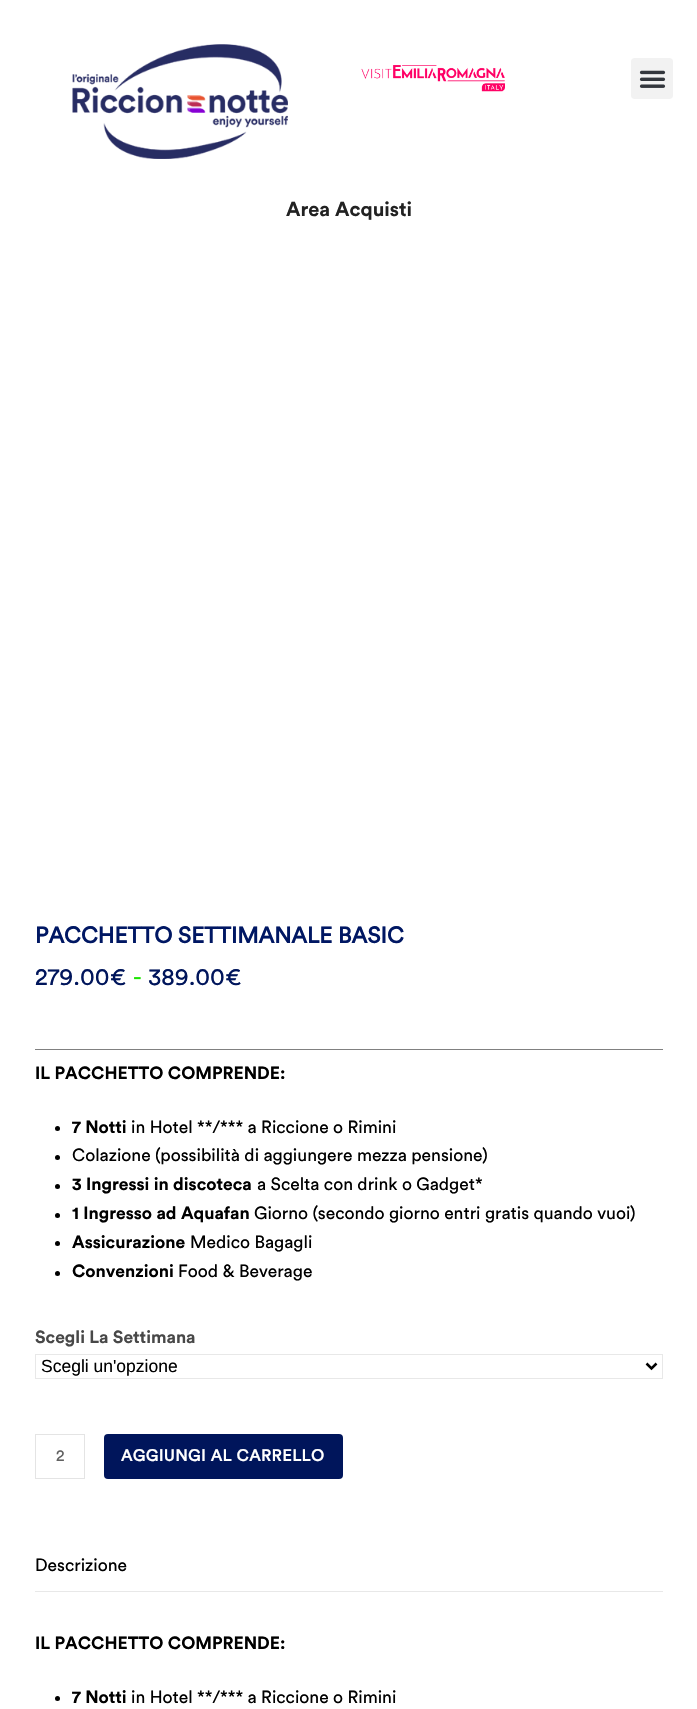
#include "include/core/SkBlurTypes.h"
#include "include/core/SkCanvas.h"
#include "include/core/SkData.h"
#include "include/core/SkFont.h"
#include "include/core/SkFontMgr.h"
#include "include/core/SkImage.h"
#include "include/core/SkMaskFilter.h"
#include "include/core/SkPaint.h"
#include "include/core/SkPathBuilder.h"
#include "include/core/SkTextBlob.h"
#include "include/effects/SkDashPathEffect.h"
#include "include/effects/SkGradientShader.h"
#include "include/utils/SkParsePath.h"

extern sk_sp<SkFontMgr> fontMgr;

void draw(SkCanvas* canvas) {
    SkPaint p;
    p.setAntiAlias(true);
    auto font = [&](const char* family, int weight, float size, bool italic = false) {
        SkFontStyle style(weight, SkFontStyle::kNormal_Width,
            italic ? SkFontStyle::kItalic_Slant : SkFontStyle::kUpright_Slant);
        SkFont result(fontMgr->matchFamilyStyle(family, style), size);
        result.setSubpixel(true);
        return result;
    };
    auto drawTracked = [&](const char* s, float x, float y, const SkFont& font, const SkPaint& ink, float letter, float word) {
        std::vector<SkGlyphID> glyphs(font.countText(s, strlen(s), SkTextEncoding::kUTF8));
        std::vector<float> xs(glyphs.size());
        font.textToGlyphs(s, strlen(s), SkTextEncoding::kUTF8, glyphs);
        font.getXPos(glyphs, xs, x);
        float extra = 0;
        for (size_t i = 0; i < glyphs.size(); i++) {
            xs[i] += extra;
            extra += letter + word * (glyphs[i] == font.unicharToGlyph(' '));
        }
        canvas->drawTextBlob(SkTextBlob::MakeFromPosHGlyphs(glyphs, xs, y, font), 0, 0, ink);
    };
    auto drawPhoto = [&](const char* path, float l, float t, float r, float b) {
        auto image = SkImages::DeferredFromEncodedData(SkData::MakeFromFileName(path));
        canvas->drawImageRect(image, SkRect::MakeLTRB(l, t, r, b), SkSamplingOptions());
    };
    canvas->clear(0xFFFFFFFF);
    drawPhoto("media/1.png", 72, 44, 288, 159);
    drawPhoto("media/2.png", 361, 65, 505, 92);
    p.setColor(0xFFF2F2F2);
    canvas->drawRoundRect(SkRect::MakeLTRB(631, 58, 673, 99), 4, 4, p);
    drawPhoto("media/3.png", 639, 70, 666, 88);
    auto font1 = font("Circular", 700, 20);
    p.setColor(0xFF222222);
    canvas->drawString("Area Acquisti", 286, 216, font1, p);
    auto font2 = font("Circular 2", 700, 22.5f);
    p.setColor(0xFF001763);
    canvas->drawString("PACCHETTO SETTIMANALE BASIC", 35, 943, font2, p);
    auto font3 = font("Circular", 400, 24);
    p.setColor(0xFF00155B);
    canvas->drawString("279.00€", 35, 985, font3, p);
    p.setColor(0xFF1BE500);
    canvas->drawString("-", 133, 985, font3, p);
    p.setColor(0xFF00155B);
    canvas->drawString("389.00€", 148, 985, font3, p);
    p.setColor(0xFF808080);
    canvas->drawRect(SkRect::MakeLTRB(35, 1049, 663, 1050), p);
    auto font4 = font("Circular", 700, 17.5f);
    p.setColor(0xFF000000);
    canvas->drawString("IL PACCHETTO COMPRENDE:", 35, 1079, font4, p);
    canvas->drawCircle(57.5f, 1128.5f, 2.5f, p);
    canvas->drawString("7 Notti", 72, 1133, font4, p);
    auto font5 = font("Circular", 400, 17.5f);
    canvas->drawString("in Hotel **/*** a Riccione o Rimini", 131, 1133, font5, p);
    canvas->drawCircle(57.5f, 1157.5f, 2.5f, p);
    canvas->drawString("Colazione (possibilità di aggiungere mezza pensione)", 72, 1161, font5, p);
    canvas->drawCircle(57.5f, 1186.5f, 2.5f, p);
    canvas->drawString("3 Ingressi in discoteca", 72, 1190, font4, p);
    canvas->drawString("a Scelta con drink o Gadget*", 257, 1190, font5, p);
    canvas->drawCircle(57.5f, 1215.5f, 2.5f, p);
    canvas->drawString("1 Ingresso ad Aquafan", 72, 1219, font4, p);
    canvas->drawString("Giorno (secondo giorno entri gratis quando vuoi)", 254, 1219, font5, p);
    canvas->drawCircle(57.5f, 1243.5f, 2.5f, p);
    canvas->drawString("Assicurazione", 72, 1248, font4, p);
    canvas->drawString("Medico Bagagli", 190, 1248, font5, p);
    canvas->drawCircle(57.5f, 1273.5f, 2.5f, p);
    canvas->drawString("Convenzioni", 72, 1277, font4, p);
    canvas->drawString("Food & Beverage", 178, 1277, font5, p);
    p.setColor(0xFF484848);
    canvas->drawString("Scegli La Settimana", 35, 1343, font4, p);
    p.setStyle(SkPaint::kStroke_Style);
    p.setStrokeWidth(1);
    p.setColor(0xFFE8E8E8);
    canvas->drawRect(SkRect::MakeLTRB(35.5f, 1354.5f, 662.5f, 1378.5f), p);
    p.setStrokeWidth(2.5f);
    p.setColor(0xFF000000);
    canvas->drawPath(SkPathBuilder().moveTo(646.5f, 1363.5f).lineTo(651.5f, 1368.5f).lineTo(656.5f, 1363.5f).detach(), p);
    auto font6 = font("Liberation Sans", 400, 17.5f);
    p.setStyle(SkPaint::kFill_Style);
    canvas->drawString("Scegli un'opzione", 41, 1372, font6, p);
    p.setStyle(SkPaint::kStroke_Style);
    p.setStrokeWidth(1);
    p.setColor(0xFFE4E4E4);
    canvas->drawRect(SkRect::MakeLTRB(35.5f, 1434.5f, 84.5f, 1478.5f), p);
    auto font7 = font("Circular", 400, 16.1f);
    p.setStyle(SkPaint::kFill_Style);
    p.setColor(0xFF616161);
    canvas->drawString("2", 56, 1461, font7, p);
    p.setColor(0xFF00155B);
    canvas->drawRoundRect(SkRect::MakeLTRB(104, 1434, 343, 1479), 4, 4, p);
    auto font8 = font("Circular 2", 700, 16.1f);
    p.setColor(0xFFFFFFFF);
    drawTracked("AGGIUNGI AL CARRELLO", 121, 1461, font8, p, 0.6f, 0);
    p.setColor(0xFFE8E8E8);
    canvas->drawRect(SkRect::MakeLTRB(35, 1591, 663, 1592), p);
    p.setColor(0xFF000000);
    canvas->drawString("Descrizione", 35, 1571, font5, p);
    canvas->drawString("IL PACCHETTO COMPRENDE:", 35, 1649, font4, p);
    canvas->drawCircle(57.5f, 1698.5f, 2.5f, p);
    canvas->drawString("7 Notti", 72, 1703, font4, p);
    canvas->drawString("in Hotel **/*** a Riccione o Rimini", 131, 1703, font5, p);
}
